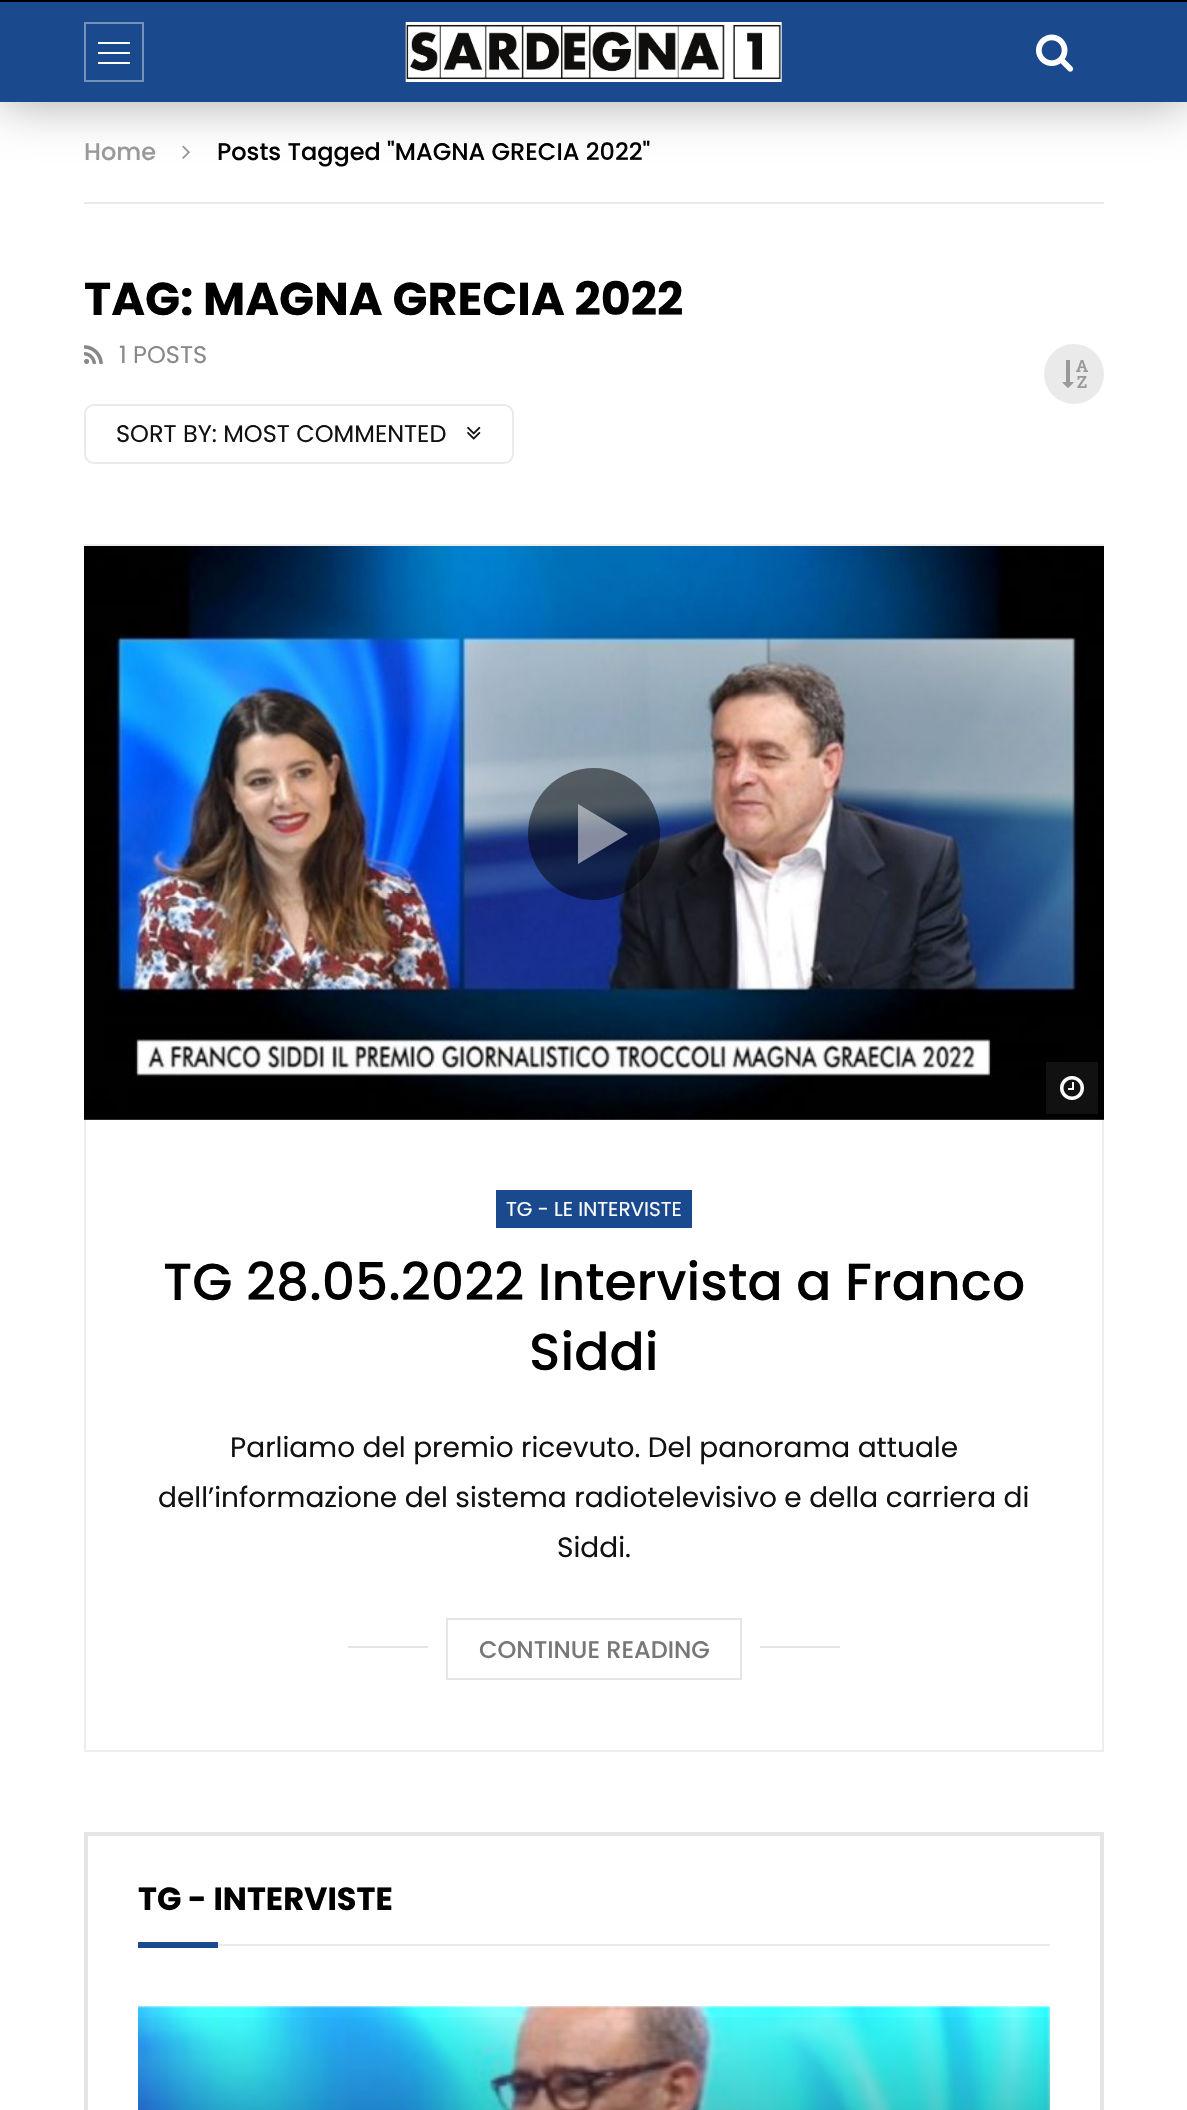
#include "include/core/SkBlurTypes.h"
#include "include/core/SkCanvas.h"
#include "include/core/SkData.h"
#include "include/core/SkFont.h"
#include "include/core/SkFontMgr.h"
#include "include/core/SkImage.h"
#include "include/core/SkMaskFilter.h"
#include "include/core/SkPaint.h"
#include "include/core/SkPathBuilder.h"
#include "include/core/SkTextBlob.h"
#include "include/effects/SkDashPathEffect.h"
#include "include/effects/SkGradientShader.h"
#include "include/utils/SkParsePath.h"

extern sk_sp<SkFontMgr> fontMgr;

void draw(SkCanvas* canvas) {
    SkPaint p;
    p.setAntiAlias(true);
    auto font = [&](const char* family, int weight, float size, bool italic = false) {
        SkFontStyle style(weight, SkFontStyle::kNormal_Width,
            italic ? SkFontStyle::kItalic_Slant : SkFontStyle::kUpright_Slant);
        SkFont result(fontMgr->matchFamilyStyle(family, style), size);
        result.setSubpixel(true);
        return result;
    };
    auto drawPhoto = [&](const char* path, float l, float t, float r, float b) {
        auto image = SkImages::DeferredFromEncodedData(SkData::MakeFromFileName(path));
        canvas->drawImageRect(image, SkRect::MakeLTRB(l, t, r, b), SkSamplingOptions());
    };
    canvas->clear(0xFFFFFFFF);
    p.setColor(0xFF000000);
    canvas->drawRect(SkRect::MakeLTRB(0, 0, 1187, 2), p);
    drawPhoto("media/3.png", 182, 145, 190, 159);
    p.setColor(0x59000000);
    p.setMaskFilter(SkMaskFilter::MakeBlur(kNormal_SkBlurStyle, 25));
    canvas->drawRect(SkRect::MakeLTRB(0, 2, 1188, 102), p);
    p.setMaskFilter(nullptr);
    p.setColor(0xFF1A498D);
    canvas->drawRect(SkRect::MakeLTRB(0, 2, 1187, 102), p);
    p.setStyle(SkPaint::kStroke_Style);
    p.setStrokeWidth(2);
    p.setColor(0xFF7692BB);
    canvas->drawRect(SkRect::MakeLTRB(85, 23, 143, 81), p);
    p.setStyle(SkPaint::kFill_Style);
    {
        const struct { float l, t, r, b; SkColor color; } items[] = {
            {98, 42, 130, 44, 0xFFFFFFFF},
            {98, 52, 130, 54, 0xFFFFFFFF},
            {98, 62, 130, 64, 0xFFFFFFFF},
        };
        for (auto [l, t, r, b, color] : items) {
            p.setColor(color);
            canvas->drawRect(SkRect::MakeLTRB(l, t, r, b), p);
        }
    }
    drawPhoto("media/1.png", 405, 22, 782, 82);
    drawPhoto("media/2.png", 1036, 34, 1074, 72);
    p.setColor(0xFFEAEAEA);
    canvas->drawRect(SkRect::MakeLTRB(84, 202, 1104, 204), p);
    auto font1 = font("Poppins", 500, 24);
    p.setColor(0xFF999999);
    canvas->drawString("Home", 84, 160, font1, p);
    p.setColor(0xFF000000);
    canvas->drawString("Posts Tagged \"MAGNA GRECIA 2022\"", 217, 160, font1, p);
    auto font2 = font("Poppins", 700, 46);
    canvas->drawString("TAG: MAGNA GRECIA 2022", 84, 315, font2, p);
    drawPhoto("media/4.png", 84, 345, 103, 364);
    auto font3 = font("Poppins", 400, 24);
    p.setColor(0xFF888888);
    canvas->drawString("1 POSTS", 119, 363, font3, p);
    p.setStyle(SkPaint::kStroke_Style);
    p.setColor(0xFFEAEAEA);
    canvas->drawRoundRect(SkRect::MakeLTRB(85, 405, 513, 463), 9, 9, p);
    p.setStyle(SkPaint::kFill_Style);
    p.setColor(0xFF111111);
    canvas->drawString("SORT BY: MOST COMMENTED", 116, 442, font3, p);
    drawPhoto("media/5.png", 467, 426, 481, 440);
    p.setColor(0xFFEAEAEA);
    canvas->drawCircle(1074, 374, 30, p);
    drawPhoto("media/6.png", 1062, 360, 1088, 388);
    p.setStyle(SkPaint::kStroke_Style);
    p.setColor(0xFFEEEEEE);
    canvas->drawRect(SkRect::MakeLTRB(85, 545, 1103, 1751), p);
    drawPhoto("media/7.png", 84, 546, 1104, 1120);
    p.setStyle(SkPaint::kFill_Style);
    p.setColor(0x80000000);
    canvas->drawCircle(594, 834, 66, p);
    p.setColor(0x80FFFFFF);
    canvas->drawPath(SkPathBuilder().moveTo(578, 864).lineTo(578, 804).lineTo(628, 834).close().detach(), p);
    p.setColor(0xFF111111);
    canvas->drawRect(SkRect::MakeLTRB(1046, 1062, 1098, 1114), p);
    drawPhoto("media/8.png", 1060, 1076, 1084, 1100);
    p.setColor(0xFF1A498D);
    canvas->drawRect(SkRect::MakeLTRB(496, 1190, 692, 1228), p);
    auto font4 = font("Poppins", 400, 20);
    p.setColor(0xFFFFFFFF);
    canvas->drawString("TG - LE INTERVISTE", 506, 1216, font4, p);
    auto font5 = font("Poppins", 500, 52);
    p.setColor(0xFF000000);
    canvas->drawString("TG 28.05.2022 Intervista a Franco", 163, 1300, font5, p);
    canvas->drawString("Siddi", 529, 1370, font5, p);
    auto font6 = font("Poppins", 400, 28);
    p.setColor(0xFF111111);
    {
        const struct { const char* s; float x, y; } items[] = {
            {"Parliamo del premio ricevuto. Del panorama attuale", 230, 1457},
            {"dell’informazione del sistema radiotelevisivo e della carriera di", 158, 1507},
            {"Siddi.", 557, 1557},
        };
        for (auto [s, x, y] : items) {
            canvas->drawString(s, x, y, font6, p);
        }
    }
    p.setStyle(SkPaint::kStroke_Style);
    p.setColor(0xFFE6E6E6);
    canvas->drawRect(SkRect::MakeLTRB(447, 1619, 741, 1679), p);
    p.setStyle(SkPaint::kFill_Style);
    p.setColor(0xFFE5E5E5);
    canvas->drawRect(SkRect::MakeLTRB(348, 1646, 428, 1648), p);
    p.setColor(0xFF777777);
    canvas->drawString("CONTINUE READING", 479, 1658, font1, p);
    p.setColor(0xFFE5E5E5);
    canvas->drawRect(SkRect::MakeLTRB(760, 1646, 840, 1648), p);
    p.setStyle(SkPaint::kStroke_Style);
    p.setStrokeWidth(4);
    canvas->drawRect(SkRect::MakeLTRB(86, 1834, 1102, 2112), p);
    auto font7 = font("Poppins", 700, 32);
    p.setStyle(SkPaint::kFill_Style);
    p.setColor(0xFF000000);
    canvas->drawString("TG - INTERVISTE", 138, 1910, font7, p);
    p.setColor(0xFF1A498D);
    canvas->drawRect(SkRect::MakeLTRB(138, 1942, 218, 1948), p);
    p.setColor(0xFFEAEAEA);
    canvas->drawRect(SkRect::MakeLTRB(218, 1944, 1050, 1946), p);
    drawPhoto("media/9.png", 138, 2006, 1050, 2110);
    {
        const SkColor colors[] = {0x00000000, 0xA8000000};
        const float stops[] = {0, 1};
        const SkPoint ends[] = {{594, 2006}, {594, 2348}};
        p.setShader(SkGradientShader::MakeLinear(ends, colors, stops, 2, SkTileMode::kClamp));
        p.setAlpha(255);
    }
    canvas->drawRect(SkRect::MakeLTRB(138, 2017, 1050, 2110), p);
}
